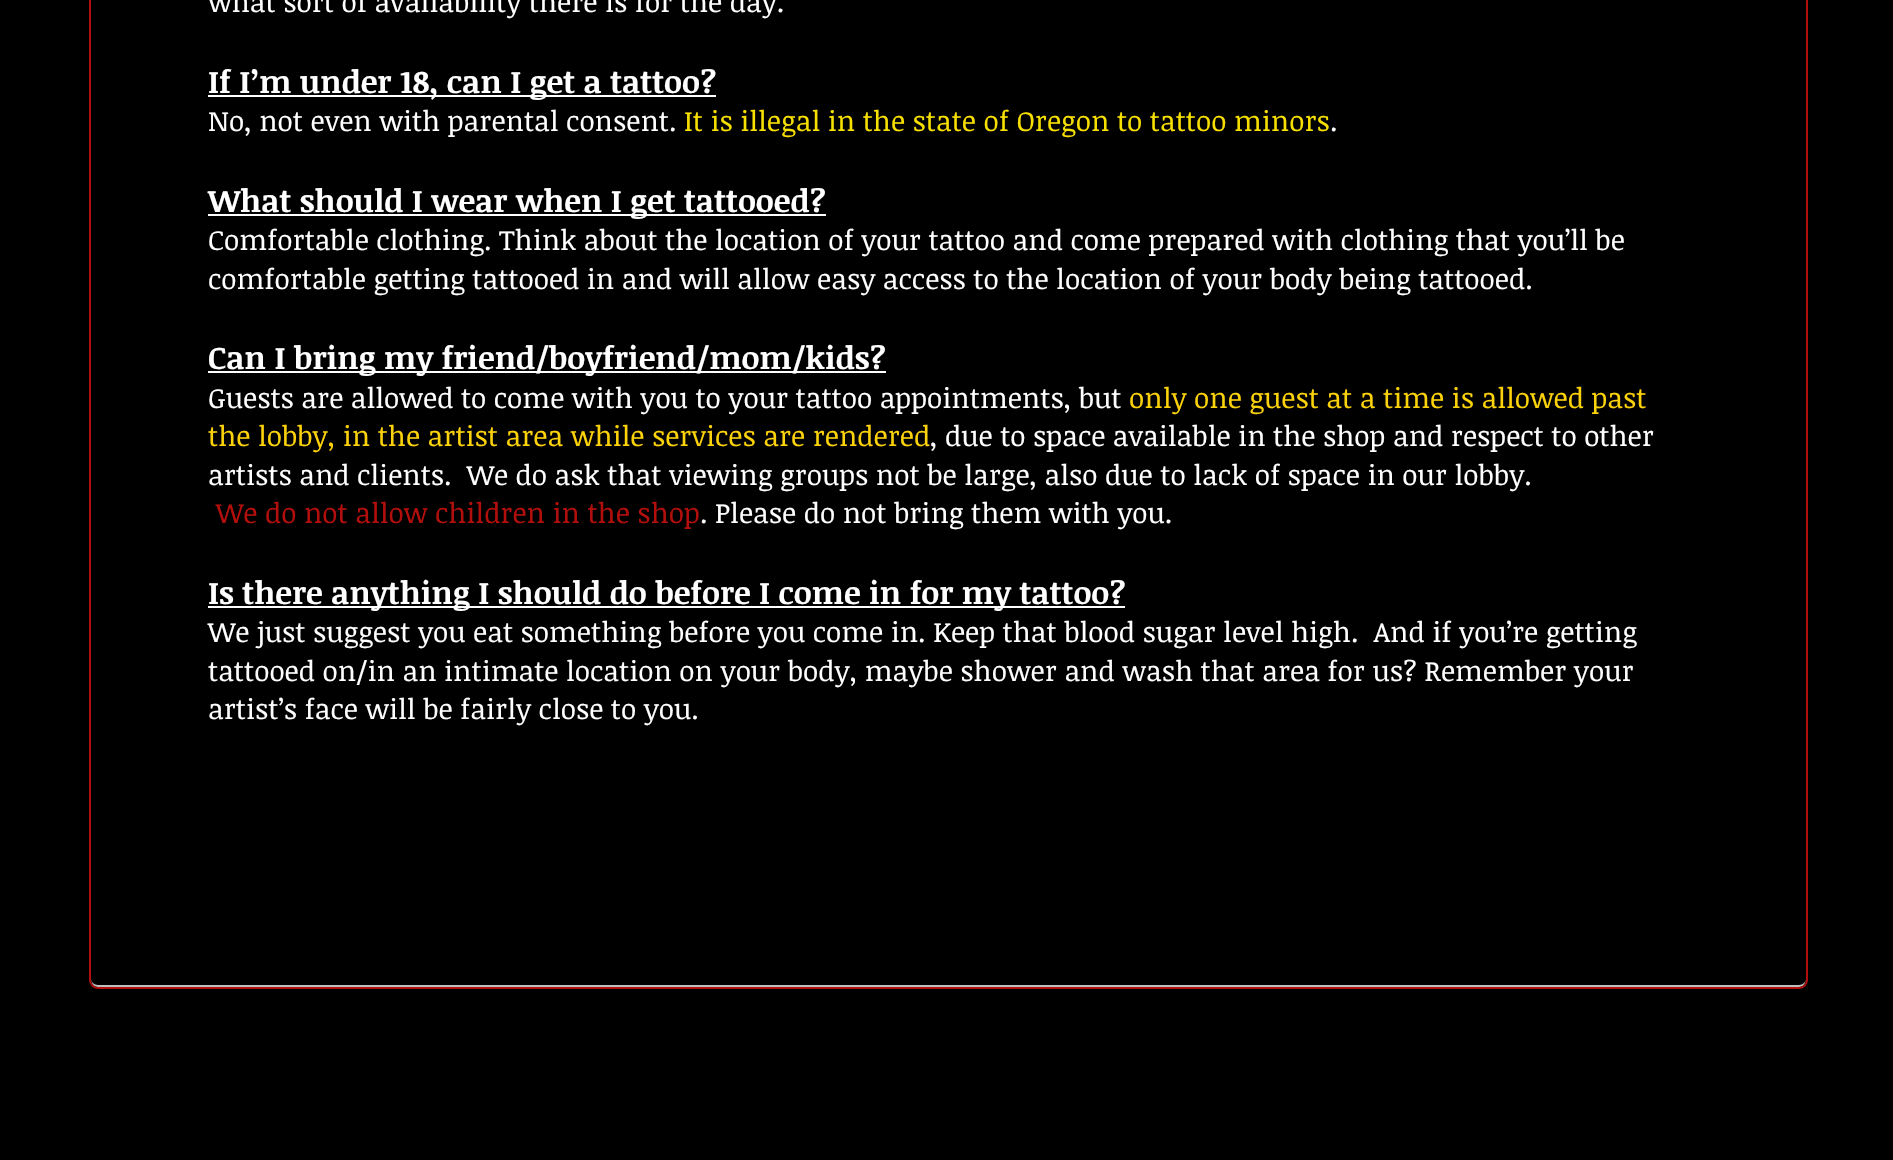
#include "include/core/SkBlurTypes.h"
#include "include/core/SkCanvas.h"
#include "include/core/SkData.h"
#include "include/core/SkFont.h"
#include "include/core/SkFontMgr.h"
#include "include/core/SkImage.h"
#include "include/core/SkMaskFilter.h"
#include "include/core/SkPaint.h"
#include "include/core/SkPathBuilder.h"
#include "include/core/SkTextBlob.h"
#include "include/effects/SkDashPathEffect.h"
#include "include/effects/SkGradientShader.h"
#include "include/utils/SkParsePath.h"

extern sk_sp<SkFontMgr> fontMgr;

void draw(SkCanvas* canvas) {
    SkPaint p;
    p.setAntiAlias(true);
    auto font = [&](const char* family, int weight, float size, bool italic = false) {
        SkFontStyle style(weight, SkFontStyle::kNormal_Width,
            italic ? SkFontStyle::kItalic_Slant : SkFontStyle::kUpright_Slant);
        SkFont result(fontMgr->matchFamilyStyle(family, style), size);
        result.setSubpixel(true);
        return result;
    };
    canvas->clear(0xFF000000);
    p.setColor(0xFFBFBFBF);
    canvas->drawPath(SkPathBuilder().moveTo(91, 978).cubicTo(91, 982, 93, 987, 98, 987).lineTo(1799, 987).cubicTo(1804, 987, 1806, 982, 1806, 978).cubicTo(1806, 982, 1803, 985, 1799, 985).lineTo(98, 985).cubicTo(94, 985, 91, 982, 91, 978).close().detach(), p);
    p.setStyle(SkPaint::kStroke_Style);
    p.setStrokeWidth(2);
    p.setColor(0xFFB20F0C);
    canvas->drawRoundRect(SkRect::MakeLTRB(90, -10, 1807, 988), 8, 8, p);
    auto font1 = font("Noticia Text", 400, 28);
    p.setStyle(SkPaint::kFill_Style);
    p.setColor(0xFFFFFFFF);
    canvas->drawString("what sort of availability there is for the day.", 208, 12, font1, p);
    canvas->drawRect(SkRect::MakeLTRB(208, 95, 716, 97), p);
    auto font2 = font("Noticia Text", 700, 31.5f);
    canvas->drawString("If I’m under 18, can I get a tattoo?", 208, 93, font2, p);
    canvas->drawString("No, not even with parental consent.", 208, 131, font1, p);
    p.setColor(0xFFF7DF00);
    canvas->drawString("It is illegal in the state of Oregon to tattoo minors", 684, 131, font1, p);
    p.setColor(0xFFFFFFFF);
    canvas->drawString(".", 1330, 131, font1, p);
    canvas->drawRect(SkRect::MakeLTRB(208, 214, 826, 216), p);
    canvas->drawString("What should I wear when I get tattooed?", 208, 212, font2, p);
    canvas->drawString("Comfortable clothing. Think about the location of your tattoo and come prepared with clothing that you’ll be", 208, 250, font1, p);
    canvas->drawString("comfortable getting tattooed in and will allow easy access to the location of your body being tattooed.", 208, 289, font1, p);
    canvas->drawRect(SkRect::MakeLTRB(208, 371, 886, 373), p);
    canvas->drawString("Can I bring my friend/boyfriend/mom/kids?", 208, 369, font2, p);
    canvas->drawString("Guests are allowed to come with you to your tattoo appointments, but", 208, 408, font1, p);
    p.setColor(0xFFFCD20A);
    canvas->drawString("only one guest at a time is allowed past", 1129, 408, font1, p);
    canvas->drawString("the lobby, in the artist area while services are rendered", 208, 446, font1, p);
    p.setColor(0xFFFFFFFF);
    canvas->drawString(", due to space available in the shop and respect to other", 930, 446, font1, p);
    canvas->drawString("artists and clients.  We do ask that viewing groups not be large, also due to lack of space in our lobby.", 208, 485, font1, p);
    p.setColor(0xFFB20F0C);
    canvas->drawString("We do not allow children in the shop", 216, 523, font1, p);
    p.setColor(0xFFFFFFFF);
    canvas->drawString(". Please do not bring them with you.", 700, 523, font1, p);
    canvas->drawRect(SkRect::MakeLTRB(208, 606, 1125, 608), p);
    canvas->drawString("Is there anything I should do before I come in for my tattoo?", 208, 604, font2, p);
    {
        const struct { const char* s; float x, y; } items[] = {
            {"We just suggest you eat something before you come in. Keep that blood sugar level high.  And if you’re getting", 208, 642},
            {"tattooed on/in an intimate location on your body, maybe shower and wash that area for us? Remember your", 208, 681},
            {"artist’s face will be fairly close to you.", 208, 719},
        };
        for (auto [s, x, y] : items) {
            canvas->drawString(s, x, y, font1, p);
        }
    }
}
